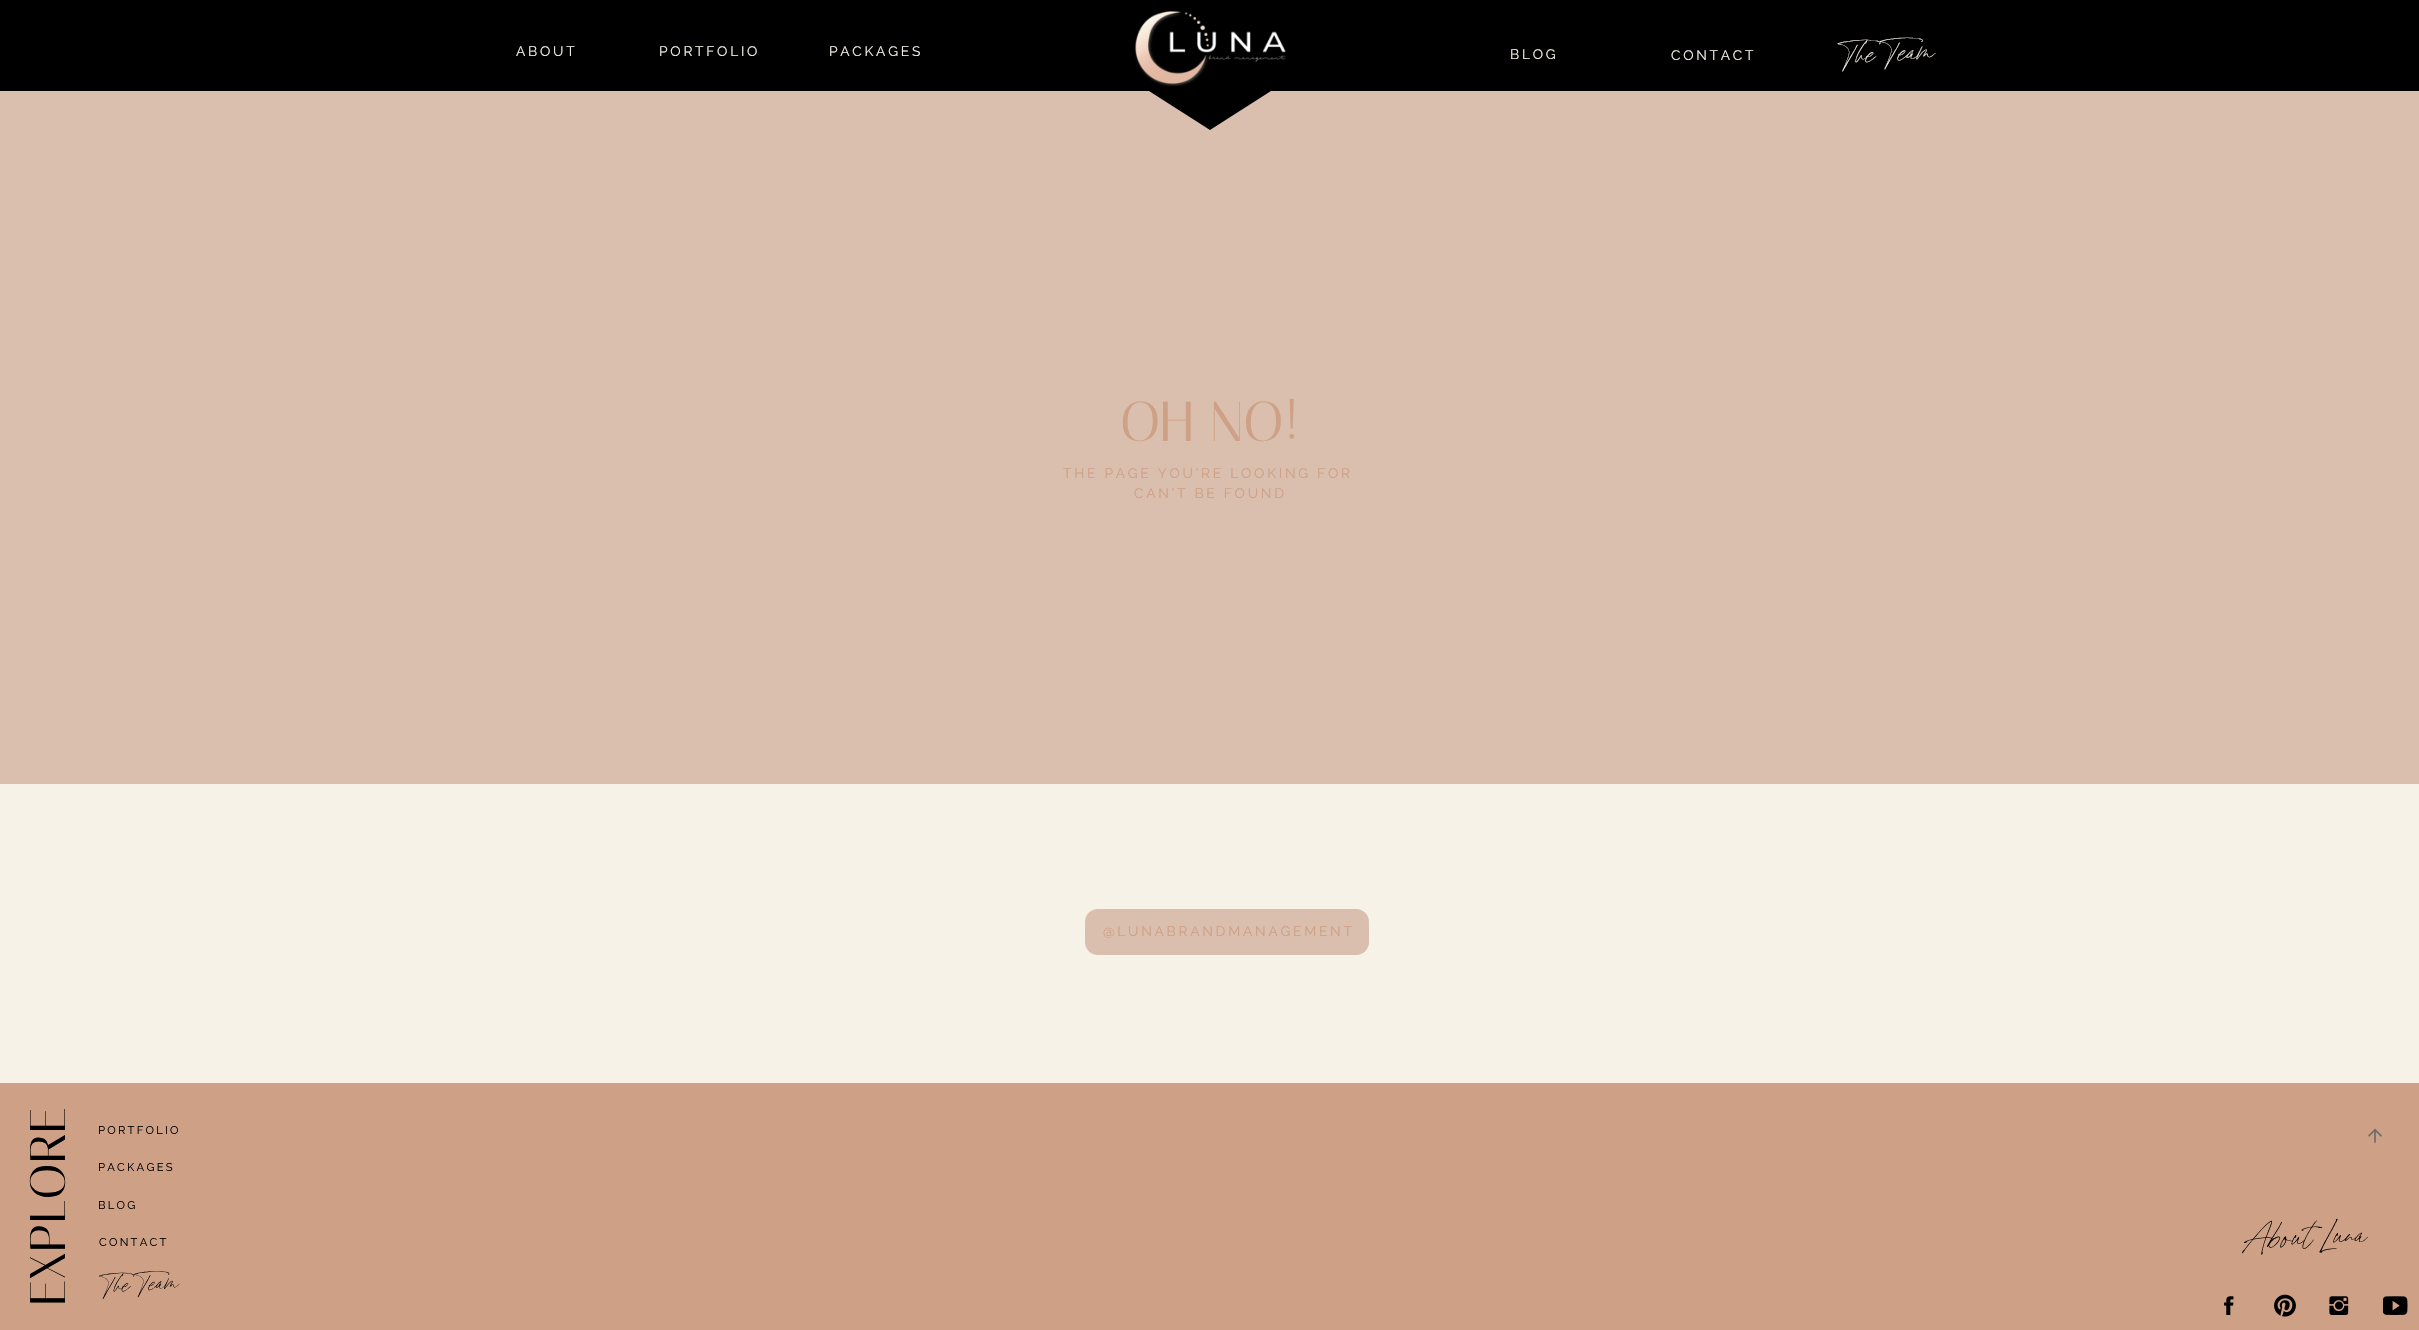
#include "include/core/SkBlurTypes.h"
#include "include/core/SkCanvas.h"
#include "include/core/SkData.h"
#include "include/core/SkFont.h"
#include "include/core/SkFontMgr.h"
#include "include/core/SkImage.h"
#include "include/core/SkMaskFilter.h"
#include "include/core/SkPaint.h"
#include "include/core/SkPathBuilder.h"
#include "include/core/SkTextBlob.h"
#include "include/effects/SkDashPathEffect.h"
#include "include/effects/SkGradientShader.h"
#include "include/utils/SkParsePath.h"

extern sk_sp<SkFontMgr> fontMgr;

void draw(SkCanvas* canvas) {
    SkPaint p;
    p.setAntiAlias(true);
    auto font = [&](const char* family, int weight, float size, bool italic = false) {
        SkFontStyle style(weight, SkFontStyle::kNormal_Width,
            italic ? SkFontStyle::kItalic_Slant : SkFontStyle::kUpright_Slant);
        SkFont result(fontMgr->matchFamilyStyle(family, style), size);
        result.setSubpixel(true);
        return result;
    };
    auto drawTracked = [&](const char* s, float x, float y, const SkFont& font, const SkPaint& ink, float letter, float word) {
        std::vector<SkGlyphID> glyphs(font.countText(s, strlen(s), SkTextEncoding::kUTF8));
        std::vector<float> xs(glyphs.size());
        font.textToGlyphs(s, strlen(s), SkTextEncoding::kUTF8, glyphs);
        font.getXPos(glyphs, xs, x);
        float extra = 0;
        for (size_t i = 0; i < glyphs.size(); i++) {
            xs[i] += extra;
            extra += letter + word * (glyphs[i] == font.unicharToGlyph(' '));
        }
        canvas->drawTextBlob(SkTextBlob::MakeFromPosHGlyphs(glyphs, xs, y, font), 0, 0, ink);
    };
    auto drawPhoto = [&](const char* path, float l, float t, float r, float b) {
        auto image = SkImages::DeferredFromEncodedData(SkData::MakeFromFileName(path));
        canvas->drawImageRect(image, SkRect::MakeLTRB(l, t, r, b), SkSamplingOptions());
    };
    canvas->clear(0xFFF6F2E7);
    p.setColor(0xFF000000);
    canvas->drawRect(SkRect::MakeLTRB(0, 0, 2419, 91), p);
    auto font1 = font("Raleway", 100, 13.75f);
    p.setColor(0xFFF6F2E7);
    {
        const struct { const char* s; float x, y; } items[] = {
            {"ABOUT", 516, 56},
            {"PORTFOLIO", 659, 56},
            {"PACKAGES", 829, 56},
        };
        for (auto [s, x, y] : items) {
            drawTracked(s, x, y, font1, p, 2.75f, 0);
        }
    }
    drawPhoto("media/1.png", 1134, 10, 1286, 87);
    drawTracked("BLOG", 1510, 59, font1, p, 2.75f, 0);
    drawTracked("CONTACT", 1671, 60, font1, p, 2.75f, 0);
    auto font2 = font("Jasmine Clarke", 400, 37.5f);
    canvas->save();
    canvas->rotate(-3, 1839, 69);
    canvas->drawString("The Team", 1839, 69, font2, p);
    canvas->restore();
    p.setColor(0xFFDABEAE);
    canvas->drawRect(SkRect::MakeLTRB(0, 91, 2419, 784), p);
    p.setColor(0xFF000000);
    canvas->drawPath(SkPathBuilder().moveTo(1271, 91).lineTo(1210, 130).lineTo(1149, 91).close().detach(), p);
    auto font3 = font("Italiana", 400, 56);
    p.setColor(0xFFCEA085);
    canvas->drawString("OH NO!", 1120, 441, font3, p);
    drawTracked("THE PAGE YOU'RE LOOKING FOR", 1063, 478, font1, p, 2.75f, 0);
    drawTracked("CAN'T BE FOUND", 1134, 498, font1, p, 2.75f, 0);
    p.setColor(0xFFDABEAE);
    canvas->drawRoundRect(SkRect::MakeLTRB(1085, 909, 1369, 955), 13, 13, p);
    p.setColor(0xFFCEA085);
    drawTracked("@LUNABRANDMANAGEMENT", 1103, 936, font1, p, 2.75f, 0);
    canvas->drawRect(SkRect::MakeLTRB(0, 1083, 2419, 1330), p);
    auto font4 = font("Italiana", 400, 50);
    p.setColor(0xFF000000);
    canvas->save();
    canvas->rotate(-90, 65, 1306);
    canvas->drawString("EXPLORE", 65, 1306, font4, p);
    canvas->restore();
    auto font5 = font("Raleway", 100, 11.25f);
    drawTracked("PORTFOLIO", 98, 1134, font5, p, 2.25f, 0);
    drawPhoto("media/2.png", 2368, 1128, 2382, 1143);
    {
        const struct { const char* s; float x, y; } items[] = {
            {"PACKAGES", 98, 1171},
            {"BLOG", 98, 1209},
            {"CONTACT", 99, 1246},
        };
        for (auto [s, x, y] : items) {
            drawTracked(s, x, y, font5, p, 2.25f, 0);
        }
    }
    auto font6 = font("Jasmine Clarke", 400, 40);
    canvas->save();
    canvas->rotate(-3, 2242, 1255);
    canvas->drawString("About Luna", 2242, 1255, font6, p);
    canvas->restore();
    auto font7 = font("Jasmine Clarke", 400, 31);
    canvas->save();
    canvas->rotate(-3, 100, 1297);
    canvas->drawString("The Team", 100, 1297, font7, p);
    canvas->restore();
    drawPhoto("media/3.png", 2224, 1296, 2234, 1315);
    drawPhoto("media/4.png", 2274, 1294, 2296, 1317);
    drawPhoto("media/5.png", 2329, 1296, 2349, 1315);
    drawPhoto("media/6.png", 2383, 1296, 2408, 1315);
}
